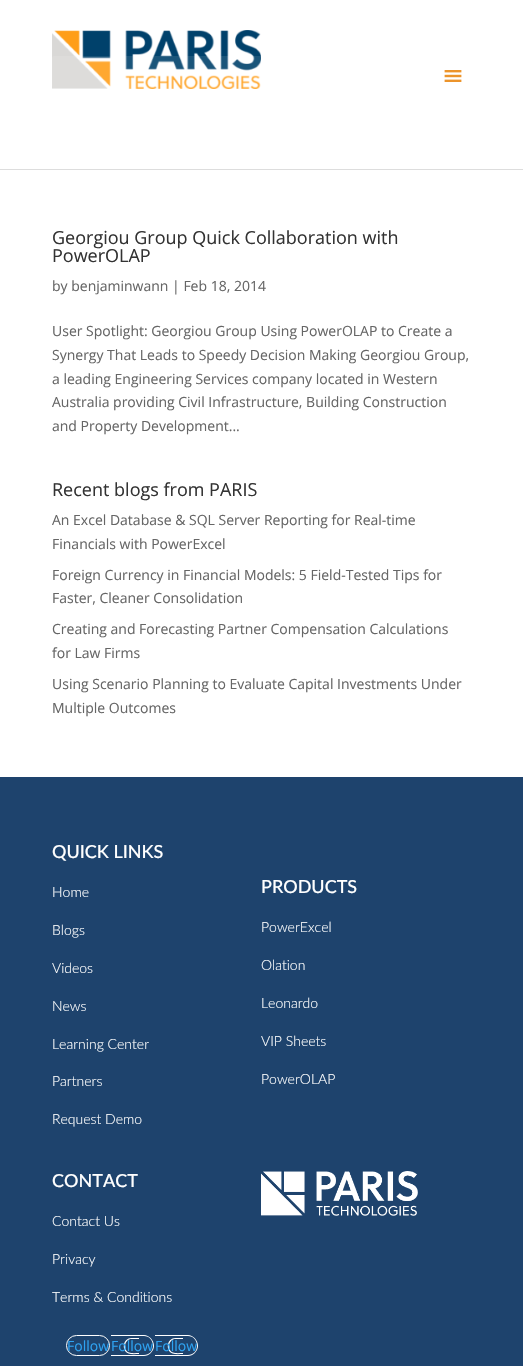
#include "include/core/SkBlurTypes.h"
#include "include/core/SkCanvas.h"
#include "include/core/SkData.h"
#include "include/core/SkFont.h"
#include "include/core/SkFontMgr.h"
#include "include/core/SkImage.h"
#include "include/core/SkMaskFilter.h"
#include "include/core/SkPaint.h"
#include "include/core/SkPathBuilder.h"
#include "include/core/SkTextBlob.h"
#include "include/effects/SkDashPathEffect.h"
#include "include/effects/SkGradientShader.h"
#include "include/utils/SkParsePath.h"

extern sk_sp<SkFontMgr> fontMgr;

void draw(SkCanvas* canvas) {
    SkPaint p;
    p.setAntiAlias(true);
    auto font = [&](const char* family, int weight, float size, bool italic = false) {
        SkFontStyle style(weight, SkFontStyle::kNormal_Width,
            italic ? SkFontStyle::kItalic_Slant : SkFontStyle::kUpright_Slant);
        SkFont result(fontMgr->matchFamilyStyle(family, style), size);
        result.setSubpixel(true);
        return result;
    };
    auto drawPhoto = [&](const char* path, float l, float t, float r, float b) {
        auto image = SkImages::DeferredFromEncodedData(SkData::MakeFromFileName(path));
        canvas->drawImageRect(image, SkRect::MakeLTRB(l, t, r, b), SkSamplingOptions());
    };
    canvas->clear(0xFFFFFFFF);
    p.setColor(0xFFDDDDDD);
    canvas->drawRect(SkRect::MakeLTRB(0, 169, 523, 170), p);
    drawPhoto("media/1.png", 52, 30, 261, 89);
    p.setColor(0x1AFFFFFF);
    canvas->drawRoundRect(SkRect::MakeLTRB(52, 56, 471, 96), 2, 2, p);
    drawPhoto("media/2.png", 444, 70, 462, 82);
    auto font1 = font("Open Sans", 400, 18);
    p.setColor(0xFF333333);
    canvas->drawString("Georgiou Group Quick Collaboration with", 52, 244, font1, p);
    canvas->drawString("PowerOLAP", 52, 262, font1, p);
    auto font2 = font("Open Sans", 400, 14);
    p.setColor(0xFF666666);
    {
        const struct { const char* s; float x, y; } items[] = {
            {"by benjaminwann | Feb 18, 2014", 52, 291},
            {"User Spotlight: Georgiou Group Using PowerOLAP to Create a", 52, 336},
            {"Synergy That Leads to Speedy Decision Making Georgiou Group,", 52, 360},
            {"a leading Engineering Services company located in Western", 52, 384},
            {"Australia providing Civil Infrastructure, Building Construction", 52, 407},
            {"and Property Development...", 52, 431},
        };
        for (auto [s, x, y] : items) {
            canvas->drawString(s, x, y, font2, p);
        }
    }
    p.setColor(0xFF333333);
    canvas->drawString("Recent blogs from PARIS", 52, 496, font1, p);
    p.setColor(0xFF666666);
    {
        const struct { const char* s; float x, y; } items[] = {
            {"An Excel Database & SQL Server Reporting for Real-time", 52, 525},
            {"Financials with PowerExcel", 52, 549},
            {"Foreign Currency in Financial Models: 5 Field-Tested Tips for", 52, 580},
            {"Faster, Cleaner Consolidation", 52, 603},
            {"Creating and Forecasting Partner Compensation Calculations", 52, 634},
            {"for Law Firms", 52, 658},
            {"Using Scenario Planning to Evaluate Capital Investments Under", 52, 689},
            {"Multiple Outcomes", 52, 713},
        };
        for (auto [s, x, y] : items) {
            canvas->drawString(s, x, y, font2, p);
        }
    }
    p.setColor(0xFF1E436D);
    canvas->drawRect(SkRect::MakeLTRB(0, 777, 523, 1366), p);
    auto font3 = font("Lato", 500, 18);
    p.setColor(0xFFFFFFFF);
    canvas->drawString("QUICK LINKS", 52, 858, font3, p);
    auto font4 = font("Lato", 300, 14);
    {
        const struct { const char* s; float x, y; } items[] = {
            {"Home", 52, 897},
            {"Blogs", 52, 935},
            {"Videos", 52, 973},
            {"News", 52, 1011},
            {"Learning Center", 52, 1049},
            {"Partners", 52, 1086},
            {"Request Demo", 52, 1124},
        };
        for (auto [s, x, y] : items) {
            canvas->drawString(s, x, y, font4, p);
        }
    }
    canvas->drawString("PRODUCTS", 261, 893, font3, p);
    {
        const struct { const char* s; float x, y; } items[] = {
            {"PowerExcel", 261, 932},
            {"Olation", 261, 970},
            {"Leonardo", 261, 1008},
            {"VIP Sheets", 261, 1046},
            {"PowerOLAP", 261, 1084},
        };
        for (auto [s, x, y] : items) {
            canvas->drawString(s, x, y, font4, p);
        }
    }
    canvas->drawString("CONTACT", 52, 1187, font3, p);
    {
        const struct { const char* s; float x, y; } items[] = {
            {"Contact Us", 52, 1226},
            {"Privacy", 52, 1264},
            {"Terms & Conditions", 52, 1302},
        };
        for (auto [s, x, y] : items) {
            canvas->drawString(s, x, y, font4, p);
        }
    }
    p.setStyle(SkPaint::kStroke_Style);
    p.setStrokeWidth(1);
    canvas->drawRoundRect(SkRect::MakeLTRB(66.5f, 1335.5f, 109.5f, 1355.5f), 10, 10, p);
    p.setStyle(SkPaint::kFill_Style);
    p.setColor(0xFF2EA3F2);
    canvas->drawString("Follow", 67, 1351, font2, p);
    p.setColor(0xFFFFFFFF);
    canvas->drawPath(SkPathBuilder(SkPathFillType::kEvenOdd).moveTo(131.5f, 1338).lineTo(139, 1338).lineTo(139, 1354).cubicTo(136, 1354, 131.5f, 1354.5f, 128.5f, 1353.5f).cubicTo(121, 1350.5f, 123, 1338, 131.5f, 1338).close().moveTo(131.5f, 1339).lineTo(139, 1339).lineTo(139, 1353).cubicTo(136, 1353, 131.5f, 1353.5f, 129, 1352.5f).cubicTo(122.5f, 1350, 124.5f, 1339, 131.5f, 1339).close().detach(), p);
    canvas->drawPath(SkPathBuilder(SkPathFillType::kEvenOdd).moveTo(111, 1335).lineTo(144, 1335).cubicTo(149, 1335, 154, 1340, 154, 1346).cubicTo(154, 1351, 149, 1356, 144, 1356).lineTo(111, 1356).close().moveTo(111, 1336).lineTo(144, 1336).cubicTo(149, 1336, 153, 1340, 153, 1346).cubicTo(153, 1351, 149, 1355, 144, 1355).lineTo(111, 1355).close().detach(), p);
    p.setColor(0xFF2EA3F2);
    canvas->drawString("Follow", 111, 1351, font2, p);
    p.setColor(0xFFFFFFFF);
    canvas->drawPath(SkPathBuilder(SkPathFillType::kEvenOdd).moveTo(175.5f, 1338).lineTo(183, 1338).lineTo(183, 1354).cubicTo(180, 1354, 175.5f, 1354.5f, 172.5f, 1353.5f).cubicTo(165, 1350.5f, 167, 1338, 175.5f, 1338).close().moveTo(175.5f, 1339).lineTo(183, 1339).lineTo(183, 1353).cubicTo(180, 1353, 175.5f, 1353.5f, 173, 1352.5f).cubicTo(166.5f, 1350, 168.5f, 1339, 175.5f, 1339).close().detach(), p);
    canvas->drawPath(SkPathBuilder(SkPathFillType::kEvenOdd).moveTo(155, 1335).lineTo(188, 1335).cubicTo(193, 1335, 198, 1340, 198, 1346).cubicTo(198, 1351, 193, 1356, 188, 1356).lineTo(155, 1356).close().moveTo(155, 1336).lineTo(188, 1336).cubicTo(193, 1336, 197, 1340, 197, 1346).cubicTo(197, 1351, 193, 1355, 188, 1355).lineTo(155, 1355).close().detach(), p);
    p.setColor(0xFF2EA3F2);
    canvas->drawString("Follow", 155, 1351, font2, p);
    drawPhoto("media/3.png", 261, 1171, 418, 1216);
}
